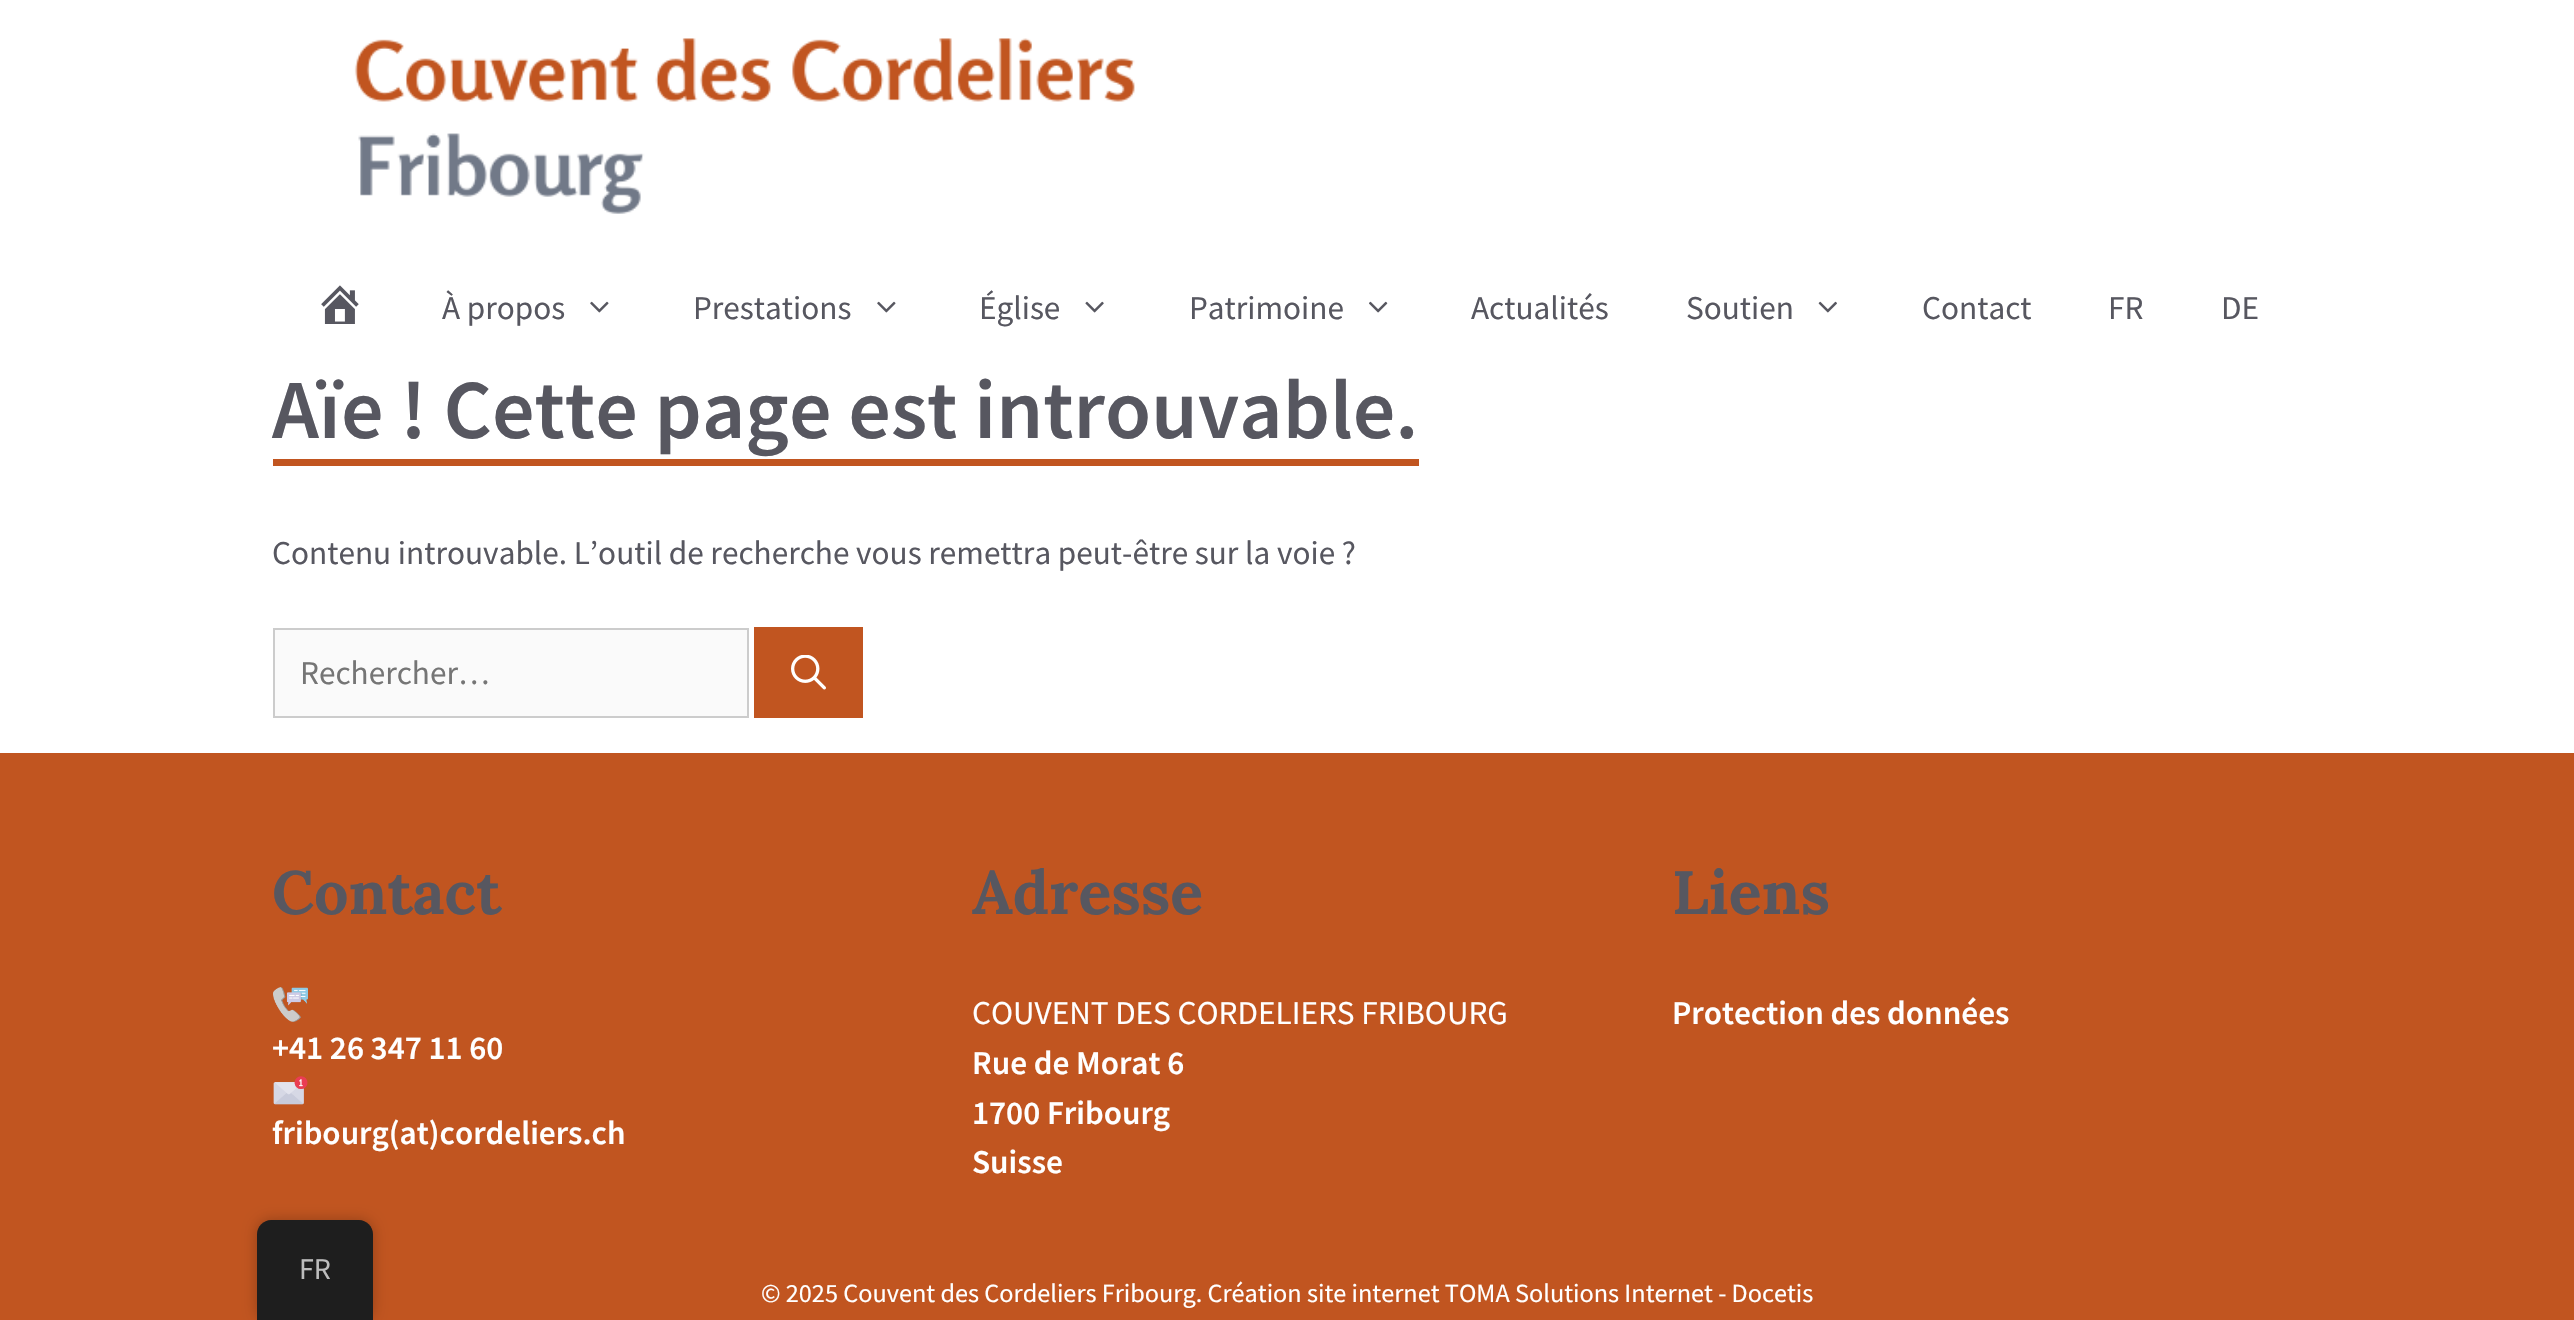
#include "include/core/SkBlurTypes.h"
#include "include/core/SkCanvas.h"
#include "include/core/SkData.h"
#include "include/core/SkFont.h"
#include "include/core/SkFontMgr.h"
#include "include/core/SkImage.h"
#include "include/core/SkMaskFilter.h"
#include "include/core/SkPaint.h"
#include "include/core/SkPathBuilder.h"
#include "include/core/SkTextBlob.h"
#include "include/effects/SkDashPathEffect.h"
#include "include/effects/SkGradientShader.h"
#include "include/utils/SkParsePath.h"

extern sk_sp<SkFontMgr> fontMgr;

void draw(SkCanvas* canvas) {
    SkPaint p;
    p.setAntiAlias(true);
    auto font = [&](const char* family, int weight, float size, bool italic = false) {
        SkFontStyle style(weight, SkFontStyle::kNormal_Width,
            italic ? SkFontStyle::kItalic_Slant : SkFontStyle::kUpright_Slant);
        SkFont result(fontMgr->matchFamilyStyle(family, style), size);
        result.setSubpixel(true);
        return result;
    };
    auto drawPhoto = [&](const char* path, float l, float t, float r, float b) {
        auto image = SkImages::DeferredFromEncodedData(SkData::MakeFromFileName(path));
        canvas->drawImageRect(image, SkRect::MakeLTRB(l, t, r, b), SkSamplingOptions());
    };
    canvas->clear(0xFFFFFFFF);
    drawPhoto("media/1.png", 354, 38, 1135, 214);
    drawPhoto("media/2.png", 321, 285, 359, 324);
    auto font1 = font("Source Sans Pro", 400, 33.25f);
    p.setColor(0xFF575760);
    canvas->drawString("À propos", 442, 319, font1, p);
    drawPhoto("media/3.png", 590, 301, 609, 313);
    canvas->drawString("Prestations", 693, 319, font1, p);
    drawPhoto("media/3.png", 877, 301, 896, 313);
    canvas->drawString("Église", 979, 319, font1, p);
    drawPhoto("media/4.png", 1085, 301, 1104, 313);
    canvas->drawString("Patrimoine", 1189, 319, font1, p);
    drawPhoto("media/5.png", 1369, 301, 1388, 313);
    canvas->drawString("Actualités", 1471, 319, font1, p);
    canvas->drawString("Soutien", 1686, 319, font1, p);
    drawPhoto("media/6.png", 1818, 301, 1837, 313);
    {
        const struct { const char* s; float x, y; } items[] = {
            {"Contact", 1922, 319},
            {"FR", 2108, 319},
            {"DE", 2221, 319},
        };
        for (auto [s, x, y] : items) {
            canvas->drawString(s, x, y, font1, p);
        }
    }
    auto font2 = font("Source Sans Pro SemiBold", 600, 84);
    canvas->drawString("Aïe ! Cette page est introuvable.", 272, 438, font2, p);
    p.setColor(0xFFC15520);
    canvas->drawRect(SkRect::MakeLTRB(273, 459, 1419, 466), p);
    p.setColor(0xFF575760);
    canvas->drawString("Contenu introuvable. L’outil de recherche vous remettra peut-être sur la voie ?", 272, 564, font1, p);
    p.setColor(0xFFFAFAFA);
    canvas->drawRect(SkRect::MakeLTRB(274, 629, 748, 717), p);
    p.setStyle(SkPaint::kStroke_Style);
    p.setStrokeWidth(2);
    p.setColor(0xFFCCCCCC);
    canvas->drawRect(SkRect::MakeLTRB(274, 629, 748, 717), p);
    p.setStyle(SkPaint::kFill_Style);
    p.setColor(0xFF757575);
    canvas->drawString("Rechercher…", 300, 684, font1, p);
    p.setColor(0xFFC15520);
    canvas->drawRect(SkRect::MakeLTRB(754, 627, 863, 718), p);
    drawPhoto("media/7.png", 791, 655, 826, 690);
    canvas->drawRect(SkRect::MakeLTRB(0, 753, 2574, 1320), p);
    auto font3 = font("Lora", 700, 61);
    p.setColor(0xFF575760);
    canvas->drawString("Contact", 272, 914, font3, p);
    drawPhoto("media/8.png", 273, 987, 308, 1022);
    auto font4 = font("Source Sans Pro SemiBold", 600, 33.25f);
    p.setColor(0xFFFFFFFF);
    canvas->drawString("+41 26 347 11 60", 272, 1059, font4, p);
    drawPhoto("media/9.png", 273, 1076, 308, 1105);
    canvas->drawString("fribourg(at)cordeliers.ch", 272, 1144, font4, p);
    p.setColor(0xFF575760);
    canvas->drawString("Adresse", 972, 914, font3, p);
    p.setColor(0xFFFFFFFF);
    canvas->drawString("COUVENT DES CORDELIERS FRIBOURG", 972, 1024, font1, p);
    {
        const struct { const char* s; float x, y; } items[] = {
            {"Rue de Morat 6", 972, 1074},
            {"1700 Fribourg", 972, 1124},
            {"Suisse", 972, 1173},
        };
        for (auto [s, x, y] : items) {
            canvas->drawString(s, x, y, font4, p);
        }
    }
    p.setColor(0xFF575760);
    canvas->drawString("Liens", 1672, 914, font3, p);
    p.setColor(0xFFFFFFFF);
    canvas->drawString("Protection des données", 1672, 1024, font4, p);
    auto font5 = font("Source Sans Pro", 400, 26.25f);
    canvas->drawString("© 2025 Couvent des Cordeliers Fribourg. Création site internet TOMA Solutions Internet - Docetis", 761, 1302, font5, p);
    p.setColor(0x40000000);
    p.setMaskFilter(SkMaskFilter::MakeBlur(kNormal_SkBlurStyle, 7));
    canvas->drawRoundRect(SkRect::MakeLTRB(257, 1220, 373, 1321), 14, 14, p);
    p.setMaskFilter(nullptr);
    p.setColor(0xFF1E1E1E);
    canvas->drawPath(SkPathBuilder().moveTo(271, 1220).lineTo(359, 1220).cubicTo(366.5f, 1220, 373, 1226.5f, 373, 1234).lineTo(373, 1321).lineTo(257, 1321).lineTo(257, 1234).cubicTo(257, 1226.5f, 263.5f, 1220, 271, 1220).close().detach(), p);
    auto font6 = font("Source Sans Pro", 400, 30);
    p.setColor(0xFFBDBDBD);
    canvas->drawString("FR", 299, 1279, font6, p);
}
